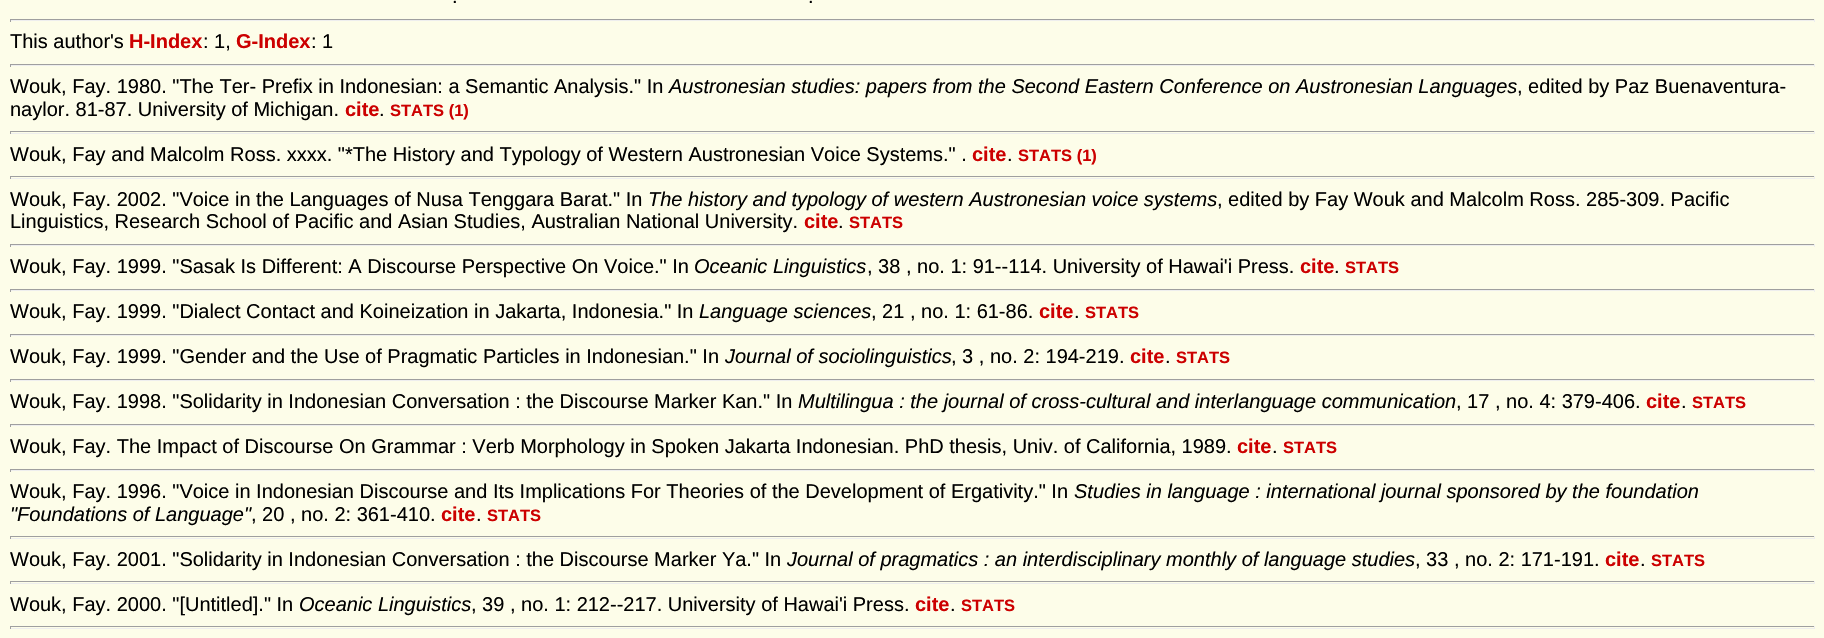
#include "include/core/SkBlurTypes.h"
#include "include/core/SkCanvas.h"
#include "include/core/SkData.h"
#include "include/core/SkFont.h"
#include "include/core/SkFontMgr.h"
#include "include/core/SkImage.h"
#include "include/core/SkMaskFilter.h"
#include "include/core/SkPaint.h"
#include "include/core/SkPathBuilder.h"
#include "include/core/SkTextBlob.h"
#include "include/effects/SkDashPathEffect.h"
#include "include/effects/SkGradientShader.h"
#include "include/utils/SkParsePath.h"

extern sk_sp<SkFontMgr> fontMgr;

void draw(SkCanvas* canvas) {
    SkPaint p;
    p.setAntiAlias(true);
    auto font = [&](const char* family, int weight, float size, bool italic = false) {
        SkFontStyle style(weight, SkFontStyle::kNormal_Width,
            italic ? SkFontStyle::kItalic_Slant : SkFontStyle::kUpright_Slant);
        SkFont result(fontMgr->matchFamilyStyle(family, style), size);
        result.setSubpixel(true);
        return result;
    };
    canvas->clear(0xFFFDFDE9);
    auto font1 = font("Liberation Sans", 400, 20);
    p.setColor(0xFF000000);
    canvas->drawString(".", 452, 3, font1, p);
    canvas->drawString(".", 808, 3, font1, p);
    {
        const struct { float l, t, r, b; SkColor color; } items[] = {
            {10, 19, 1815, 20, 0xFF9F9F9F},
            {1814, 19, 1815, 22, 0xFFEEEEEE},
            {10, 20, 1815, 21, 0xFFEEEEEE},
            {10, 19, 11, 22, 0xFF9F9F9F},
        };
        for (auto [l, t, r, b, color] : items) {
            p.setColor(color);
            canvas->drawRect(SkRect::MakeLTRB(l, t, r, b), p);
        }
    }
    p.setColor(0xFF000000);
    canvas->drawString("This author's", 10, 48, font1, p);
    auto font2 = font("Liberation Sans", 700, 20);
    p.setColor(0xFFCC0000);
    canvas->drawString("H-Index", 129, 48, font2, p);
    p.setColor(0xFF000000);
    canvas->drawString(": 1,", 203, 48, font1, p);
    p.setColor(0xFFCC0000);
    canvas->drawString("G-Index", 236, 48, font2, p);
    p.setColor(0xFF000000);
    canvas->drawString(": 1", 311, 48, font1, p);
    {
        const struct { float l, t, r, b; SkColor color; } items[] = {
            {10, 64, 1815, 65, 0xFF9F9F9F},
            {1814, 64, 1815, 67, 0xFFEEEEEE},
            {10, 65, 1815, 66, 0xFFEEEEEE},
            {10, 64, 11, 67, 0xFF9F9F9F},
        };
        for (auto [l, t, r, b, color] : items) {
            p.setColor(color);
            canvas->drawRect(SkRect::MakeLTRB(l, t, r, b), p);
        }
    }
    p.setColor(0xFF000000);
    canvas->drawString("Wouk, Fay. 1980. \"The Ter- Prefix in Indonesian: a Semantic Analysis.\" In", 10, 93, font1, p);
    auto font3 = font("Liberation Sans", 400, 20, true);
    canvas->drawString("Austronesian studies: papers from the Second Eastern Conference on Austronesian Languages", 669, 93, font3, p);
    canvas->drawString(", edited by Paz Buenaventura-", 1517, 93, font1, p);
    canvas->drawString("naylor. 81-87. University of Michigan.", 10, 116, font1, p);
    p.setColor(0xFFCC0000);
    canvas->drawString("cite", 345, 116, font2, p);
    p.setColor(0xFF000000);
    canvas->drawString(".", 379, 116, font1, p);
    auto font4 = font("Liberation Sans", 700, 16.5f);
    p.setColor(0xFFCC0000);
    canvas->drawString("STATS (1)", 390, 116, font4, p);
    {
        const struct { float l, t, r, b; SkColor color; } items[] = {
            {10, 131, 1815, 132, 0xFF9F9F9F},
            {1814, 131, 1815, 134, 0xFFEEEEEE},
            {10, 133, 1815, 134, 0xFFEEEEEE},
            {10, 131, 11, 134, 0xFF9F9F9F},
        };
        for (auto [l, t, r, b, color] : items) {
            p.setColor(color);
            canvas->drawRect(SkRect::MakeLTRB(l, t, r, b), p);
        }
    }
    p.setColor(0xFF000000);
    canvas->drawString("Wouk, Fay and Malcolm Ross. xxxx. \"*The History and Typology of Western Austronesian Voice Systems.\" .", 10, 161, font1, p);
    p.setColor(0xFFCC0000);
    canvas->drawString("cite", 972, 161, font2, p);
    p.setColor(0xFF000000);
    canvas->drawString(".", 1007, 161, font1, p);
    p.setColor(0xFFCC0000);
    canvas->drawString("STATS (1)", 1018, 161, font4, p);
    {
        const struct { float l, t, r, b; SkColor color; } items[] = {
            {10, 176, 1815, 177, 0xFF9F9F9F},
            {1814, 176, 1815, 179, 0xFFEEEEEE},
            {10, 178, 1815, 179, 0xFFEEEEEE},
            {10, 176, 11, 179, 0xFF9F9F9F},
        };
        for (auto [l, t, r, b, color] : items) {
            p.setColor(color);
            canvas->drawRect(SkRect::MakeLTRB(l, t, r, b), p);
        }
    }
    p.setColor(0xFF000000);
    canvas->drawString("Wouk, Fay. 2002. \"Voice in the Languages of Nusa Tenggara Barat.\" In", 10, 206, font1, p);
    canvas->drawString("The history and typology of western Austronesian voice systems", 648, 206, font3, p);
    canvas->drawString(", edited by Fay Wouk and Malcolm Ross. 285-309. Pacific", 1217, 206, font1, p);
    canvas->drawString("Linguistics, Research School of Pacific and Asian Studies, Australian National University.", 10, 228, font1, p);
    p.setColor(0xFFCC0000);
    canvas->drawString("cite", 804, 228, font2, p);
    p.setColor(0xFF000000);
    canvas->drawString(".", 838, 228, font1, p);
    p.setColor(0xFFCC0000);
    canvas->drawString("STATS", 849, 228, font4, p);
    {
        const struct { float l, t, r, b; SkColor color; } items[] = {
            {10, 244, 1815, 245, 0xFF9F9F9F},
            {1814, 244, 1815, 247, 0xFFEEEEEE},
            {10, 245, 1815, 246, 0xFFEEEEEE},
            {10, 244, 11, 247, 0xFF9F9F9F},
        };
        for (auto [l, t, r, b, color] : items) {
            p.setColor(color);
            canvas->drawRect(SkRect::MakeLTRB(l, t, r, b), p);
        }
    }
    p.setColor(0xFF000000);
    canvas->drawString("Wouk, Fay. 1999. \"Sasak Is Different: A Discourse Perspective On Voice.\" In", 10, 273, font1, p);
    canvas->drawString("Oceanic Linguistics", 694, 273, font3, p);
    canvas->drawString(", 38 , no. 1: 91--114. University of Hawai'i Press.", 867, 273, font1, p);
    p.setColor(0xFFCC0000);
    canvas->drawString("cite", 1300, 273, font2, p);
    p.setColor(0xFF000000);
    canvas->drawString(".", 1334, 273, font1, p);
    p.setColor(0xFFCC0000);
    canvas->drawString("STATS", 1345, 273, font4, p);
    {
        const struct { float l, t, r, b; SkColor color; } items[] = {
            {10, 289, 1815, 290, 0xFF9F9F9F},
            {1814, 289, 1815, 292, 0xFFEEEEEE},
            {10, 290, 1815, 291, 0xFFEEEEEE},
            {10, 289, 11, 292, 0xFF9F9F9F},
        };
        for (auto [l, t, r, b, color] : items) {
            p.setColor(color);
            canvas->drawRect(SkRect::MakeLTRB(l, t, r, b), p);
        }
    }
    p.setColor(0xFF000000);
    canvas->drawString("Wouk, Fay. 1999. \"Dialect Contact and Koineization in Jakarta, Indonesia.\" In", 10, 318, font1, p);
    canvas->drawString("Language sciences", 699, 318, font3, p);
    canvas->drawString(", 21 , no. 1: 61-86.", 871, 318, font1, p);
    p.setColor(0xFFCC0000);
    canvas->drawString("cite", 1039, 318, font2, p);
    p.setColor(0xFF000000);
    canvas->drawString(".", 1074, 318, font1, p);
    p.setColor(0xFFCC0000);
    canvas->drawString("STATS", 1085, 318, font4, p);
    {
        const struct { float l, t, r, b; SkColor color; } items[] = {
            {10, 334, 1815, 335, 0xFF9F9F9F},
            {1814, 334, 1815, 337, 0xFFEEEEEE},
            {10, 335, 1815, 336, 0xFFEEEEEE},
            {10, 334, 11, 337, 0xFF9F9F9F},
        };
        for (auto [l, t, r, b, color] : items) {
            p.setColor(color);
            canvas->drawRect(SkRect::MakeLTRB(l, t, r, b), p);
        }
    }
    p.setColor(0xFF000000);
    canvas->drawString("Wouk, Fay. 1999. \"Gender and the Use of Pragmatic Particles in Indonesian.\" In", 10, 363, font1, p);
    canvas->drawString("Journal of sociolinguistics", 725, 363, font3, p);
    canvas->drawString(", 3 , no. 2: 194-219.", 951, 363, font1, p);
    p.setColor(0xFFCC0000);
    canvas->drawString("cite", 1130, 363, font2, p);
    p.setColor(0xFF000000);
    canvas->drawString(".", 1165, 363, font1, p);
    p.setColor(0xFFCC0000);
    canvas->drawString("STATS", 1176, 363, font4, p);
    {
        const struct { float l, t, r, b; SkColor color; } items[] = {
            {10, 379, 1815, 380, 0xFF9F9F9F},
            {1814, 379, 1815, 382, 0xFFEEEEEE},
            {10, 380, 1815, 381, 0xFFEEEEEE},
            {10, 379, 11, 382, 0xFF9F9F9F},
        };
        for (auto [l, t, r, b, color] : items) {
            p.setColor(color);
            canvas->drawRect(SkRect::MakeLTRB(l, t, r, b), p);
        }
    }
    p.setColor(0xFF000000);
    canvas->drawString("Wouk, Fay. 1998. \"Solidarity in Indonesian Conversation : the Discourse Marker Kan.\" In", 10, 408, font1, p);
    canvas->drawString("Multilingua : the journal of cross-cultural and interlanguage communication", 798, 408, font3, p);
    canvas->drawString(", 17 , no. 4: 379-406.", 1456, 408, font1, p);
    p.setColor(0xFFCC0000);
    canvas->drawString("cite", 1646, 408, font2, p);
    p.setColor(0xFF000000);
    canvas->drawString(".", 1681, 408, font1, p);
    p.setColor(0xFFCC0000);
    canvas->drawString("STATS", 1692, 408, font4, p);
    {
        const struct { float l, t, r, b; SkColor color; } items[] = {
            {10, 424, 1815, 425, 0xFF9F9F9F},
            {1814, 424, 1815, 427, 0xFFEEEEEE},
            {10, 425, 1815, 426, 0xFFEEEEEE},
            {10, 424, 11, 427, 0xFF9F9F9F},
        };
        for (auto [l, t, r, b, color] : items) {
            p.setColor(color);
            canvas->drawRect(SkRect::MakeLTRB(l, t, r, b), p);
        }
    }
    p.setColor(0xFF000000);
    canvas->drawString("Wouk, Fay. The Impact of Discourse On Grammar : Verb Morphology in Spoken Jakarta Indonesian. PhD thesis, Univ. of California, 1989.", 10, 453, font1, p);
    p.setColor(0xFFCC0000);
    canvas->drawString("cite", 1237, 453, font2, p);
    p.setColor(0xFF000000);
    canvas->drawString(".", 1272, 453, font1, p);
    p.setColor(0xFFCC0000);
    canvas->drawString("STATS", 1283, 453, font4, p);
    {
        const struct { float l, t, r, b; SkColor color; } items[] = {
            {10, 469, 1815, 470, 0xFF9F9F9F},
            {1814, 469, 1815, 472, 0xFFEEEEEE},
            {10, 470, 1815, 471, 0xFFEEEEEE},
            {10, 469, 11, 472, 0xFF9F9F9F},
        };
        for (auto [l, t, r, b, color] : items) {
            p.setColor(color);
            canvas->drawRect(SkRect::MakeLTRB(l, t, r, b), p);
        }
    }
    p.setColor(0xFF000000);
    canvas->drawString("Wouk, Fay. 1996. \"Voice in Indonesian Discourse and Its Implications For Theories of the Development of Ergativity.\" In", 10, 498, font1, p);
    canvas->drawString("Studies in language : international journal sponsored by the foundation", 1074, 498, font3, p);
    canvas->drawString("\"Foundations of Language\"", 10, 521, font3, p);
    canvas->drawString(", 20 , no. 2: 361-410.", 251, 521, font1, p);
    p.setColor(0xFFCC0000);
    canvas->drawString("cite", 441, 521, font2, p);
    p.setColor(0xFF000000);
    canvas->drawString(".", 476, 521, font1, p);
    p.setColor(0xFFCC0000);
    canvas->drawString("STATS", 487, 521, font4, p);
    {
        const struct { float l, t, r, b; SkColor color; } items[] = {
            {10, 536, 1815, 537, 0xFF9F9F9F},
            {1814, 536, 1815, 539, 0xFFEEEEEE},
            {10, 538, 1815, 539, 0xFFEEEEEE},
            {10, 536, 11, 539, 0xFF9F9F9F},
        };
        for (auto [l, t, r, b, color] : items) {
            p.setColor(color);
            canvas->drawRect(SkRect::MakeLTRB(l, t, r, b), p);
        }
    }
    p.setColor(0xFF000000);
    canvas->drawString("Wouk, Fay. 2001. \"Solidarity in Indonesian Conversation : the Discourse Marker Ya.\" In", 10, 566, font1, p);
    canvas->drawString("Journal of pragmatics : an interdisciplinary monthly of language studies", 787, 566, font3, p);
    canvas->drawString(", 33 , no. 2: 171-191.", 1415, 566, font1, p);
    p.setColor(0xFFCC0000);
    canvas->drawString("cite", 1605, 566, font2, p);
    p.setColor(0xFF000000);
    canvas->drawString(".", 1640, 566, font1, p);
    p.setColor(0xFFCC0000);
    canvas->drawString("STATS", 1651, 566, font4, p);
    {
        const struct { float l, t, r, b; SkColor color; } items[] = {
            {10, 581, 1815, 582, 0xFF9F9F9F},
            {1814, 581, 1815, 584, 0xFFEEEEEE},
            {10, 583, 1815, 584, 0xFFEEEEEE},
            {10, 581, 11, 584, 0xFF9F9F9F},
        };
        for (auto [l, t, r, b, color] : items) {
            p.setColor(color);
            canvas->drawRect(SkRect::MakeLTRB(l, t, r, b), p);
        }
    }
    p.setColor(0xFF000000);
    canvas->drawString("Wouk, Fay. 2000. \"[Untitled].\" In", 10, 611, font1, p);
    canvas->drawString("Oceanic Linguistics", 299, 611, font3, p);
    canvas->drawString(", 39 , no. 1: 212--217. University of Hawai'i Press.", 471, 611, font1, p);
    p.setColor(0xFFCC0000);
    canvas->drawString("cite", 915, 611, font2, p);
    p.setColor(0xFF000000);
    canvas->drawString(".", 950, 611, font1, p);
    p.setColor(0xFFCC0000);
    canvas->drawString("STATS", 961, 611, font4, p);
    {
        const struct { float l, t, r, b; SkColor color; } items[] = {
            {10, 626, 1815, 627, 0xFF9F9F9F},
            {1814, 626, 1815, 629, 0xFFEEEEEE},
            {10, 628, 1815, 629, 0xFFEEEEEE},
            {10, 626, 11, 629, 0xFF9F9F9F},
        };
        for (auto [l, t, r, b, color] : items) {
            p.setColor(color);
            canvas->drawRect(SkRect::MakeLTRB(l, t, r, b), p);
        }
    }
}
